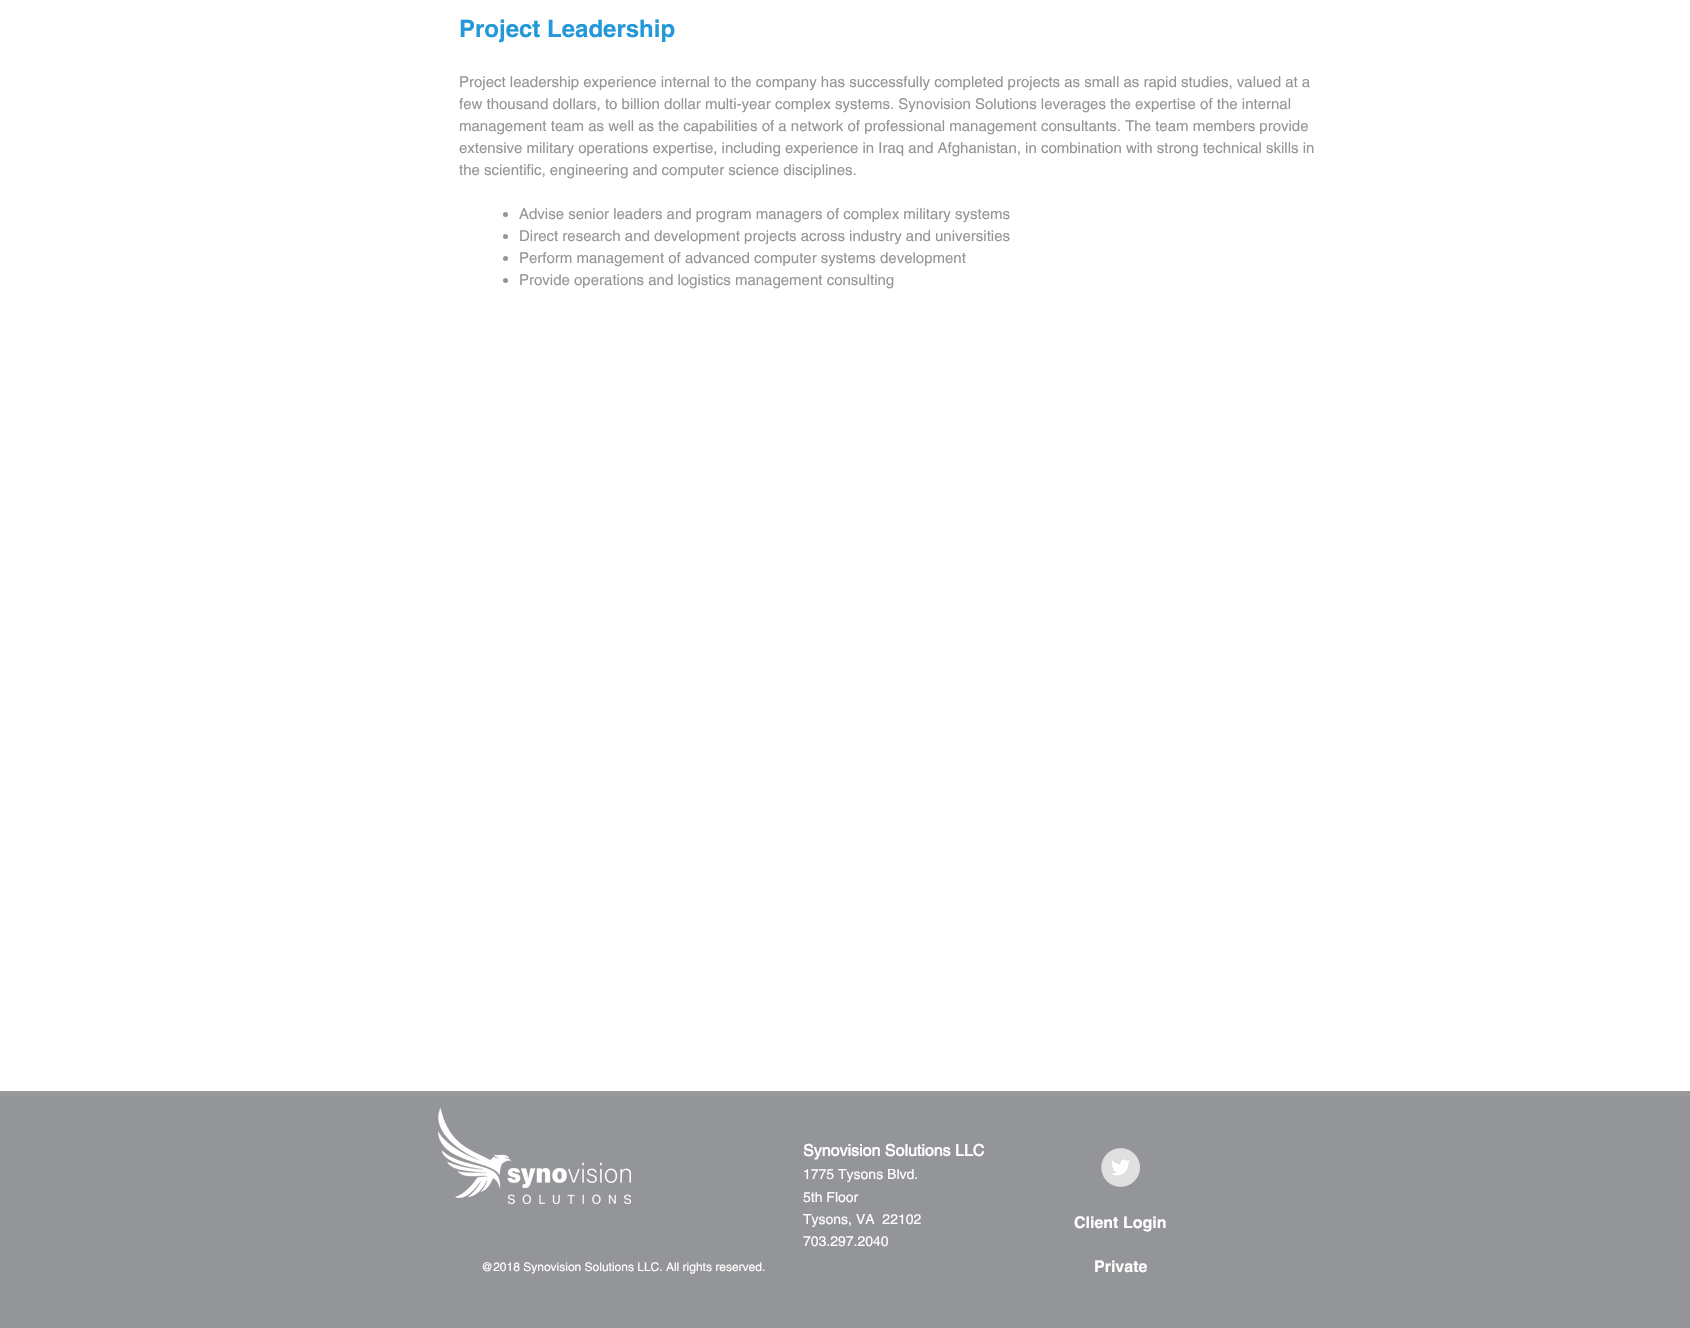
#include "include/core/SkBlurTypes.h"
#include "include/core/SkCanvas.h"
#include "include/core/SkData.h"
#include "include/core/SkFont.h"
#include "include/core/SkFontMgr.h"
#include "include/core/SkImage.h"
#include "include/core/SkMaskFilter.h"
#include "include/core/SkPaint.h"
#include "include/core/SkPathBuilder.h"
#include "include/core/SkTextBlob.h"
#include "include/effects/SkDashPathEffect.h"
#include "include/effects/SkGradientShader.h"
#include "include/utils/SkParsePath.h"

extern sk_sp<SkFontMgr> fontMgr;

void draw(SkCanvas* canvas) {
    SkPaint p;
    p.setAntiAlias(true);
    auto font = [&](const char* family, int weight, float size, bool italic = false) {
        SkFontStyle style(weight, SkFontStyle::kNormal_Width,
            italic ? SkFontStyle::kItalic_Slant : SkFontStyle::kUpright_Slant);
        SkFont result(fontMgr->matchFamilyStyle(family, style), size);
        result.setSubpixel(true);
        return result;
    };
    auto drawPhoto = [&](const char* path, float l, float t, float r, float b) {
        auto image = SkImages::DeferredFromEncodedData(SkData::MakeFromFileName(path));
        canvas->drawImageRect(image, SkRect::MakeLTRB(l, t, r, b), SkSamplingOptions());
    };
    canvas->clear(0xFFFFFFFF);
    auto font1 = font("helvetica", 700, 24);
    p.setColor(0xFF2398DA);
    canvas->drawString("Project Leadership", 459, 37, font1, p);
    auto font2 = font("helvetica", 400, 15);
    p.setColor(0xFF939598);
    {
        const struct { const char* s; float x, y; } items[] = {
            {"Project leadership experience internal to the company has successfully completed projects as small as rapid studies, valued at a", 459, 87},
            {"few thousand dollars, to billion dollar multi-year complex systems. Synovision Solutions leverages the expertise of the internal", 459, 109},
            {"management team as well as the capabilities of a network of professional management consultants. The team members provide", 459, 131},
            {"extensive military operations expertise, including experience in Iraq and Afghanistan, in combination with strong technical skills in", 459, 153},
            {"the scientific, engineering and computer science disciplines.", 459, 175},
        };
        for (auto [s, x, y] : items) {
            canvas->drawString(s, x, y, font2, p);
        }
    }
    canvas->drawCircle(505.5f, 214.5f, 2.5f, p);
    canvas->drawString("Advise senior leaders and program managers of complex military systems", 519, 219, font2, p);
    canvas->drawCircle(505.5f, 236.5f, 2.5f, p);
    canvas->drawString("Direct research and development projects across industry and universities", 519, 241, font2, p);
    canvas->drawCircle(505.5f, 258.5f, 2.5f, p);
    canvas->drawString("Perform management of advanced computer systems development", 519, 263, font2, p);
    canvas->drawCircle(505.5f, 280.5f, 2.5f, p);
    canvas->drawString("Provide operations and logistics management consulting", 519, 285, font2, p);
    canvas->drawRect(SkRect::MakeLTRB(0, 1096, 1690, 1328), p);
    p.setColor(0xFF999997);
    canvas->drawRect(SkRect::MakeLTRB(0, 1091, 1690, 1096), p);
    drawPhoto("media/1.png", 438, 1108, 631, 1204);
    auto font3 = font("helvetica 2", 700, 16);
    p.setColor(0xFFFFFFFF);
    canvas->drawString("Synovision Solutions LLC", 803, 1156, font3, p);
    auto font4 = font("helvetica", 400, 14);
    {
        const struct { const char* s; float x, y; } items[] = {
            {"1775 Tysons Blvd.", 803, 1179},
            {"5th Floor", 803, 1202},
            {"Tysons, VA  22102", 803, 1224},
            {"703.297.2040", 803, 1246},
        };
        for (auto [s, x, y] : items) {
            canvas->drawString(s, x, y, font4, p);
        }
    }
    drawPhoto("media/2.png", 1101, 1148, 1140, 1187);
    auto font5 = font("helvetica", 700, 16);
    canvas->drawString("Client Login", 1074, 1228, font5, p);
    auto font6 = font("helvetica", 400, 12);
    canvas->drawString("@2018 Synovision Solutions LLC. All rights reserved.", 481, 1271, font6, p);
    canvas->drawString("Private", 1094, 1272, font5, p);
}
